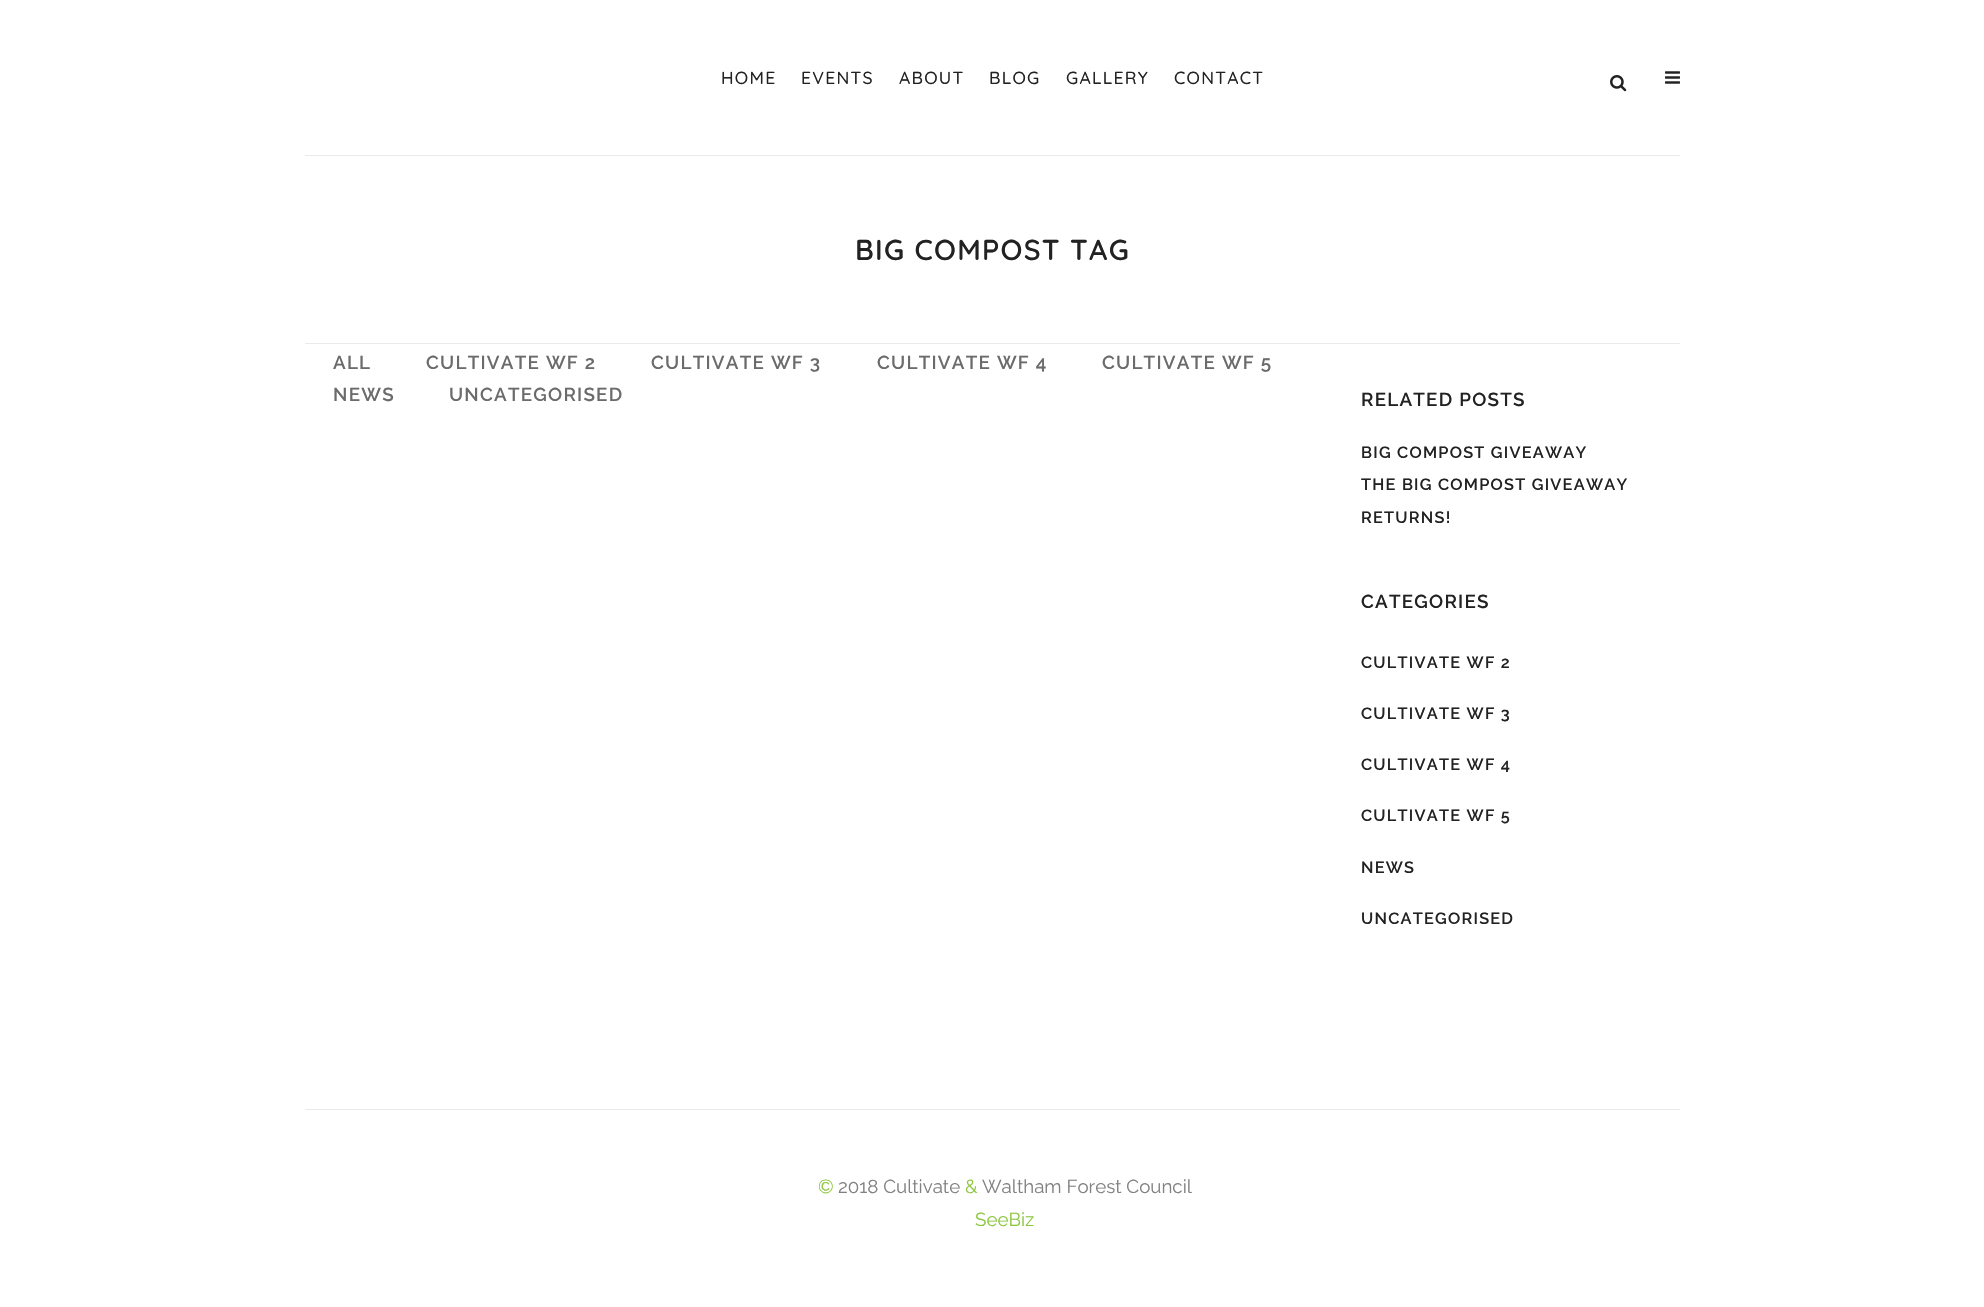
#include "include/core/SkBlurTypes.h"
#include "include/core/SkCanvas.h"
#include "include/core/SkData.h"
#include "include/core/SkFont.h"
#include "include/core/SkFontMgr.h"
#include "include/core/SkImage.h"
#include "include/core/SkMaskFilter.h"
#include "include/core/SkPaint.h"
#include "include/core/SkPathBuilder.h"
#include "include/core/SkTextBlob.h"
#include "include/effects/SkDashPathEffect.h"
#include "include/effects/SkGradientShader.h"
#include "include/utils/SkParsePath.h"

extern sk_sp<SkFontMgr> fontMgr;

void draw(SkCanvas* canvas) {
    SkPaint p;
    p.setAntiAlias(true);
    auto font = [&](const char* family, int weight, float size, bool italic = false) {
        SkFontStyle style(weight, SkFontStyle::kNormal_Width,
            italic ? SkFontStyle::kItalic_Slant : SkFontStyle::kUpright_Slant);
        SkFont result(fontMgr->matchFamilyStyle(family, style), size);
        result.setSubpixel(true);
        return result;
    };
    auto drawTracked = [&](const char* s, float x, float y, const SkFont& font, const SkPaint& ink, float letter, float word) {
        std::vector<SkGlyphID> glyphs(font.countText(s, strlen(s), SkTextEncoding::kUTF8));
        std::vector<float> xs(glyphs.size());
        font.textToGlyphs(s, strlen(s), SkTextEncoding::kUTF8, glyphs);
        font.getXPos(glyphs, xs, x);
        float extra = 0;
        for (size_t i = 0; i < glyphs.size(); i++) {
            xs[i] += extra;
            extra += letter + word * (glyphs[i] == font.unicharToGlyph(' '));
        }
        canvas->drawTextBlob(SkTextBlob::MakeFromPosHGlyphs(glyphs, xs, y, font), 0, 0, ink);
    };
    auto drawPhoto = [&](const char* path, float l, float t, float r, float b) {
        auto image = SkImages::DeferredFromEncodedData(SkData::MakeFromFileName(path));
        canvas->drawImageRect(image, SkRect::MakeLTRB(l, t, r, b), SkSamplingOptions());
    };
    canvas->clear(0xFFFFFFFF);
    p.setColor(0xFFEAEAEA);
    canvas->drawRect(SkRect::MakeLTRB(305, 155, 1680, 156), p);
    auto font1 = font("Quicksand", 500, 17.5f);
    p.setColor(0xFF222222);
    {
        const struct { const char* s; float x, y; } items[] = {
            {"HOME", 721, 84},
            {"EVENTS", 801, 84},
            {"ABOUT", 899, 84},
            {"BLOG", 989, 84},
            {"GALLERY", 1066, 84},
            {"CONTACT", 1174, 84},
        };
        for (auto [s, x, y] : items) {
            drawTracked(s, x, y, font1, p, 1.25f, 0);
        }
    }
    drawPhoto("media/1.png", 1610, 75, 1627, 92);
    drawPhoto("media/2.png", 1665, 71, 1680, 84);
    auto font2 = font("Quicksand", 600, 28.75f);
    drawTracked("BIG COMPOST TAG", 855, 260, font2, p, 1.25f, 0);
    p.setColor(0xFFEAEAEA);
    canvas->drawRect(SkRect::MakeLTRB(305, 343, 1680, 344), p);
    auto font3 = font("Raleway", 600, 18.75f);
    p.setColor(0xFF6B6B6B);
    {
        const struct { const char* s; float x, y; } items[] = {
            {"ALL", 333, 369},
            {"CULTIVATE WF 2", 426, 369},
            {"CULTIVATE WF 3", 651, 369},
            {"CULTIVATE WF 4", 877, 369},
            {"CULTIVATE WF 5", 1102, 369},
            {"NEWS", 333, 401},
            {"UNCATEGORISED", 449, 401},
        };
        for (auto [s, x, y] : items) {
            drawTracked(s, x, y, font3, p, 1.25f, 0);
        }
    }
    p.setColor(0xFF222222);
    drawTracked("RELATED POSTS", 1361, 406, font3, p, 1.25f, 0);
    auto font4 = font("Raleway", 600, 16.25f);
    {
        const struct { const char* s; float x, y; } items[] = {
            {"BIG COMPOST GIVEAWAY", 1361, 458},
            {"THE BIG COMPOST GIVEAWAY", 1361, 490},
            {"RETURNS!", 1361, 523},
        };
        for (auto [s, x, y] : items) {
            drawTracked(s, x, y, font4, p, 1.25f, 0);
        }
    }
    drawTracked("CATEGORIES", 1361, 608, font3, p, 1.25f, 0);
    {
        const struct { const char* s; float x, y; } items[] = {
            {"CULTIVATE WF 2", 1361, 668},
            {"CULTIVATE WF 3", 1361, 719},
            {"CULTIVATE WF 4", 1361, 770},
            {"CULTIVATE WF 5", 1361, 821},
            {"NEWS", 1361, 873},
            {"UNCATEGORISED", 1361, 924},
        };
        for (auto [s, x, y] : items) {
            drawTracked(s, x, y, font4, p, 1.25f, 0);
        }
    }
    p.setColor(0xFFEAEAEA);
    canvas->drawRect(SkRect::MakeLTRB(305, 1109, 1680, 1110), p);
    auto font5 = font("Raleway", 400, 18.75f);
    p.setColor(0xFF8DC73F);
    canvas->drawString("©", 818, 1193, font5, p);
    p.setColor(0xFF818181);
    canvas->drawString("2018 Cultivate", 838, 1193, font5, p);
    p.setColor(0xFF8DC73F);
    canvas->drawString("&", 965, 1193, font5, p);
    p.setColor(0xFF818181);
    canvas->drawString("Waltham Forest Council", 982, 1193, font5, p);
    p.setColor(0xFF8DC73F);
    canvas->drawString("SeeBiz", 975, 1226, font5, p);
}
